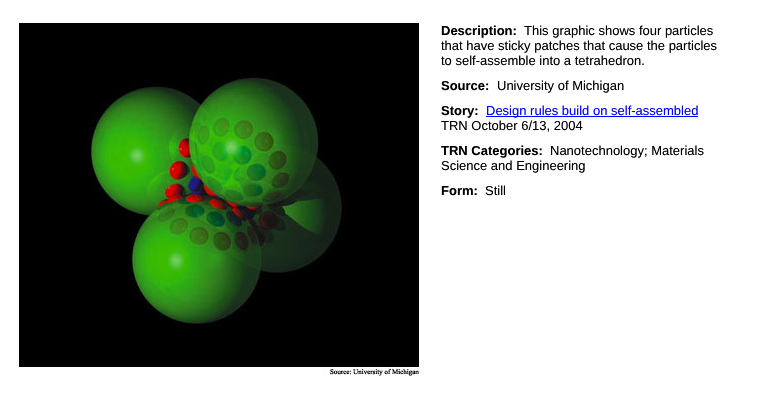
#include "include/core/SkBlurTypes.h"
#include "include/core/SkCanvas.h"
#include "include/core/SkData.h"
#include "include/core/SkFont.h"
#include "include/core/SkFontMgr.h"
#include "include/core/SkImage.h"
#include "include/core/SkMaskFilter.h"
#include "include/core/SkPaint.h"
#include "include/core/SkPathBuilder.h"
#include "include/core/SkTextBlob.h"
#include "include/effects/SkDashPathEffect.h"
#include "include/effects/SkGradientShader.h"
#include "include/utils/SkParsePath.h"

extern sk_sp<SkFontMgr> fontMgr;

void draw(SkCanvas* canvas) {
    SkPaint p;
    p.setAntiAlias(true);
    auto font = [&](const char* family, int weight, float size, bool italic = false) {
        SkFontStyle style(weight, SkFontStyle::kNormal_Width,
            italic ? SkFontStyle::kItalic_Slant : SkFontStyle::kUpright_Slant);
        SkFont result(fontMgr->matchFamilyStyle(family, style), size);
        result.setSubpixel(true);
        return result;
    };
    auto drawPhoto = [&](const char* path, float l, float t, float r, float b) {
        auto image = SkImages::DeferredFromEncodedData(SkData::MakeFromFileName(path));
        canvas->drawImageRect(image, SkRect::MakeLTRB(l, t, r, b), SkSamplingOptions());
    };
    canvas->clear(0xFFFFFFFF);
    drawPhoto("media/1.png", 19, 23, 419, 377);
    auto font1 = font("Liberation Sans", 700, 13);
    p.setColor(0xFF000000);
    canvas->drawString("Description:", 441, 35, font1, p);
    auto font2 = font("Liberation Sans", 400, 13);
    {
        const struct { const char* s; float x, y; } items[] = {
            {"This graphic shows four particles", 524, 35},
            {"that have sticky patches that cause the particles", 441, 50},
            {"to self-assemble into a tetrahedron.", 441, 65},
        };
        for (auto [s, x, y] : items) {
            canvas->drawString(s, x, y, font2, p);
        }
    }
    canvas->drawString("Source:", 441, 90, font1, p);
    canvas->drawString("University of Michigan", 497, 90, font2, p);
    canvas->drawString("Story:", 441, 115, font1, p);
    p.setColor(0xFF0000FF);
    canvas->drawRect(SkRect::MakeLTRB(486, 116, 698, 117), p);
    canvas->drawString("Design rules build on self-assembled", 486, 115, font2, p);
    p.setColor(0xFF000000);
    canvas->drawString("TRN October 6/13, 2004", 441, 130, font2, p);
    canvas->drawString("TRN Categories:", 441, 155, font1, p);
    canvas->drawString("Nanotechnology; Materials", 550, 155, font2, p);
    canvas->drawString("Science and Engineering", 441, 170, font2, p);
    canvas->drawString("Form:", 441, 195, font1, p);
    canvas->drawString("Still", 485, 195, font2, p);
}
